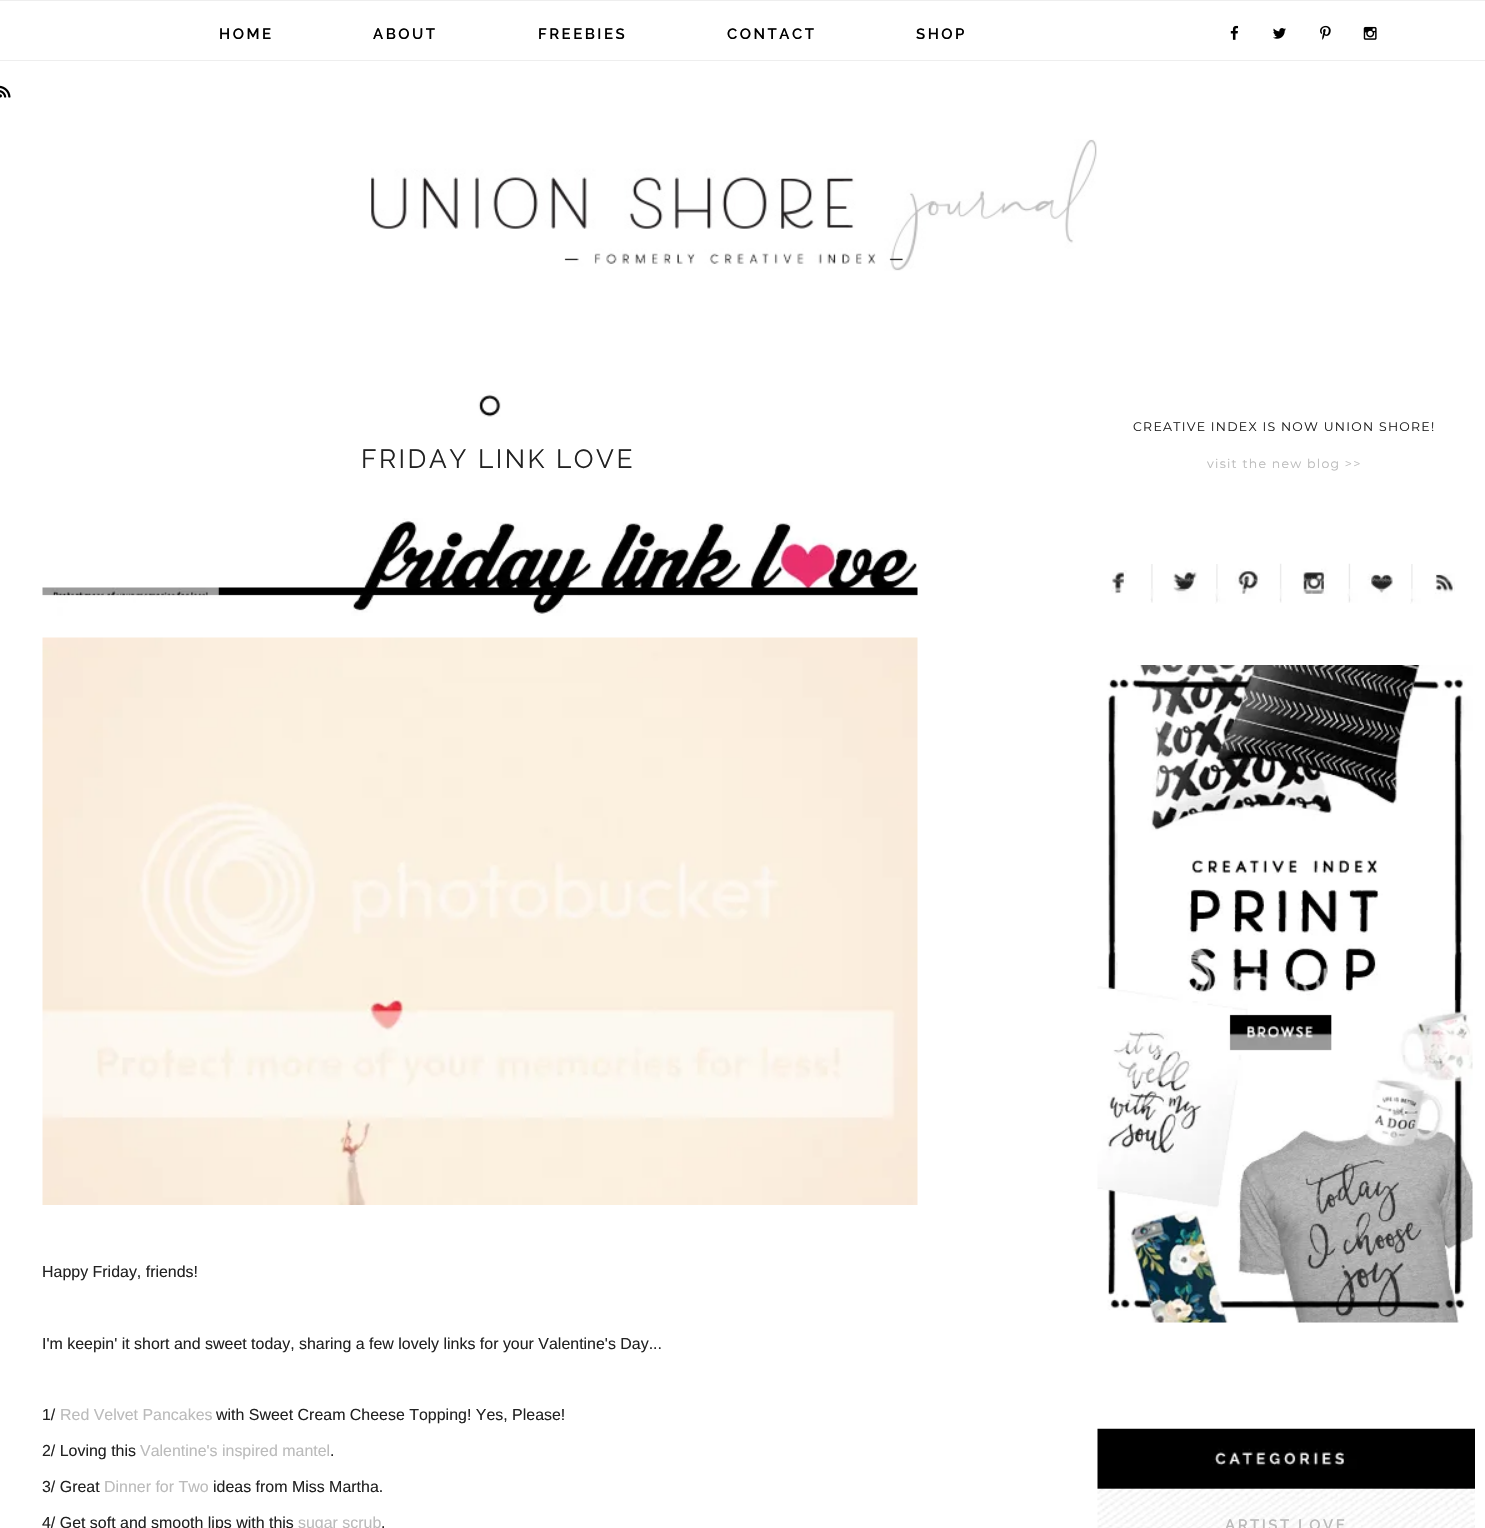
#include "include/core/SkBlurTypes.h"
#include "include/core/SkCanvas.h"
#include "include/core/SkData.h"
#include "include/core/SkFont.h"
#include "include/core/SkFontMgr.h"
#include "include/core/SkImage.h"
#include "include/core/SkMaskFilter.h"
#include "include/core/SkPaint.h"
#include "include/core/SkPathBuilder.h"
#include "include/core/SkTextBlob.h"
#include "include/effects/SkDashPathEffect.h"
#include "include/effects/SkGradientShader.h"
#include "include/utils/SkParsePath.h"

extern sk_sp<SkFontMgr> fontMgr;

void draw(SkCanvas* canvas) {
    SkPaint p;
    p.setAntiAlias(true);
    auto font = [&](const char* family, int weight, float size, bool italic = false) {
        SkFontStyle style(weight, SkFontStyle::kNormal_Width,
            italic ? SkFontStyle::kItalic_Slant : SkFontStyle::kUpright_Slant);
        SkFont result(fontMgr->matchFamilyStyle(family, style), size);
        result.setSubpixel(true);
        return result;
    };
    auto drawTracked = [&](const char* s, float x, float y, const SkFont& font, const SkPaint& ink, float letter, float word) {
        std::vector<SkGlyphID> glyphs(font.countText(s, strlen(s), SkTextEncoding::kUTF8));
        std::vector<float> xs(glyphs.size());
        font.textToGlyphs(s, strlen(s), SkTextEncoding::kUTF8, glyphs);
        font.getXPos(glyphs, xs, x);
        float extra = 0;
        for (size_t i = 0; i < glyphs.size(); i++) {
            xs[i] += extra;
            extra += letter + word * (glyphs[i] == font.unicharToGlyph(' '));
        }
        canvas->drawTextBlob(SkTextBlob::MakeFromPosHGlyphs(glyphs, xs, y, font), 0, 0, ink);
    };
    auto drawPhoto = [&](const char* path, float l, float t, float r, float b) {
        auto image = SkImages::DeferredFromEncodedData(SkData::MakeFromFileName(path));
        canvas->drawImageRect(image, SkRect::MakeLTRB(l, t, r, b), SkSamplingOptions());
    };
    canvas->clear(0xFFFFFFFF);
    p.setColor(0xFFEEEEEE);
    canvas->drawRect(SkRect::MakeLTRB(0, 0, 1485, 1), p);
    canvas->drawRect(SkRect::MakeLTRB(0, 60, 1485, 61), p);
    auto font1 = font("Raleway", 600, 15);
    p.setColor(0xFF000000);
    {
        const struct { const char* s; float x, y; } items[] = {
            {"HOME", 219, 39},
            {"ABOUT", 373, 39},
            {"FREEBIES", 538, 39},
            {"CONTACT", 727, 39},
            {"SHOP", 916, 39},
        };
        for (auto [s, x, y] : items) {
            drawTracked(s, x, y, font1, p, 2.5f, 0);
        }
    }
    drawPhoto("media/1.png", 1230, 25, 1239, 40);
    drawPhoto("media/2.png", 1273, 28, 1286, 39);
    drawPhoto("media/3.png", 1320, 25, 1331, 40);
    drawPhoto("media/4.png", 1363, 26, 1377, 40);
    drawPhoto("media/5.png", 0, 85, 11, 98);
    drawPhoto("media/6.png", 371, 139, 1097, 271);
    drawPhoto("media/7.png", 478, 391, 501, 417);
    auto font2 = font("Raleway", 400, 26.25f);
    p.setColor(0xFF222222);
    drawTracked("FRIDAY LINK LOVE", 361, 468, font2, p, 2.5f, 0);
    drawPhoto("media/8.png", 42, 518, 918, 616);
    drawPhoto("media/9.png", 42, 637, 918, 1205);
    auto font3 = font("Liberation Sans", 400, 15.95f);
    {
        const struct { const char* s; float x, y; } items[] = {
            {"Happy Friday, friends!", 42, 1277},
            {"I'm keepin' it short and sweet today, sharing a few lovely links for your Valentine's Day...", 42, 1349},
            {"1/", 42, 1420},
        };
        for (auto [s, x, y] : items) {
            canvas->drawString(s, x, y, font3, p);
        }
    }
    p.setColor(0xFFBBBBBB);
    canvas->drawString("Red Velvet Pancakes", 60, 1420, font3, p);
    p.setColor(0xFF222222);
    canvas->drawString("with Sweet Cream Cheese Topping! Yes, Please!", 216, 1420, font3, p);
    canvas->drawString("2/ Loving this", 42, 1456, font3, p);
    p.setColor(0xFFBBBBBB);
    canvas->drawString("Valentine's inspired mantel", 140, 1456, font3, p);
    p.setColor(0xFF222222);
    canvas->drawString(".", 330, 1456, font3, p);
    canvas->drawString("3/ Great", 42, 1492, font3, p);
    p.setColor(0xFFBBBBBB);
    canvas->drawString("Dinner for Two", 104, 1492, font3, p);
    p.setColor(0xFF222222);
    canvas->drawString("ideas from Miss Martha.", 213, 1492, font3, p);
    canvas->drawString("4/ Get soft and smooth lips with this", 42, 1528, font3, p);
    p.setColor(0xFFBBBBBB);
    canvas->drawString("sugar scrub", 298, 1528, font3, p);
    p.setColor(0xFF222222);
    canvas->drawString(".", 381, 1528, font3, p);
    auto font4 = font("Montserrat", 400, 12.5f);
    drawTracked("CREATIVE INDEX IS NOW UNION SHORE!", 1133, 431, font4, p, 1.25f, 0);
    p.setColor(0xFFBBBBBB);
    drawTracked("visit the new blog >>", 1207, 468, font4, p, 1.25f, 0);
    drawPhoto("media/10.png", 1111, 570, 1127, 594);
    drawPhoto("media/11.png", 1150, 564, 1198, 603);
    drawPhoto("media/12.png", 1215, 564, 1260, 604);
    drawPhoto("media/13.png", 1279, 563, 1328, 603);
    drawPhoto("media/14.png", 1347, 563, 1393, 603);
    drawPhoto("media/15.png", 1410, 564, 1455, 604);
    drawPhoto("media/16.png", 1097, 665, 1473, 1323);
    drawPhoto("media/17.png", 1097, 1428, 1475, 1528);
    drawTracked("ARTIST LOVE", 1225, 1530, font1, p, 2.5f, 0);
}
